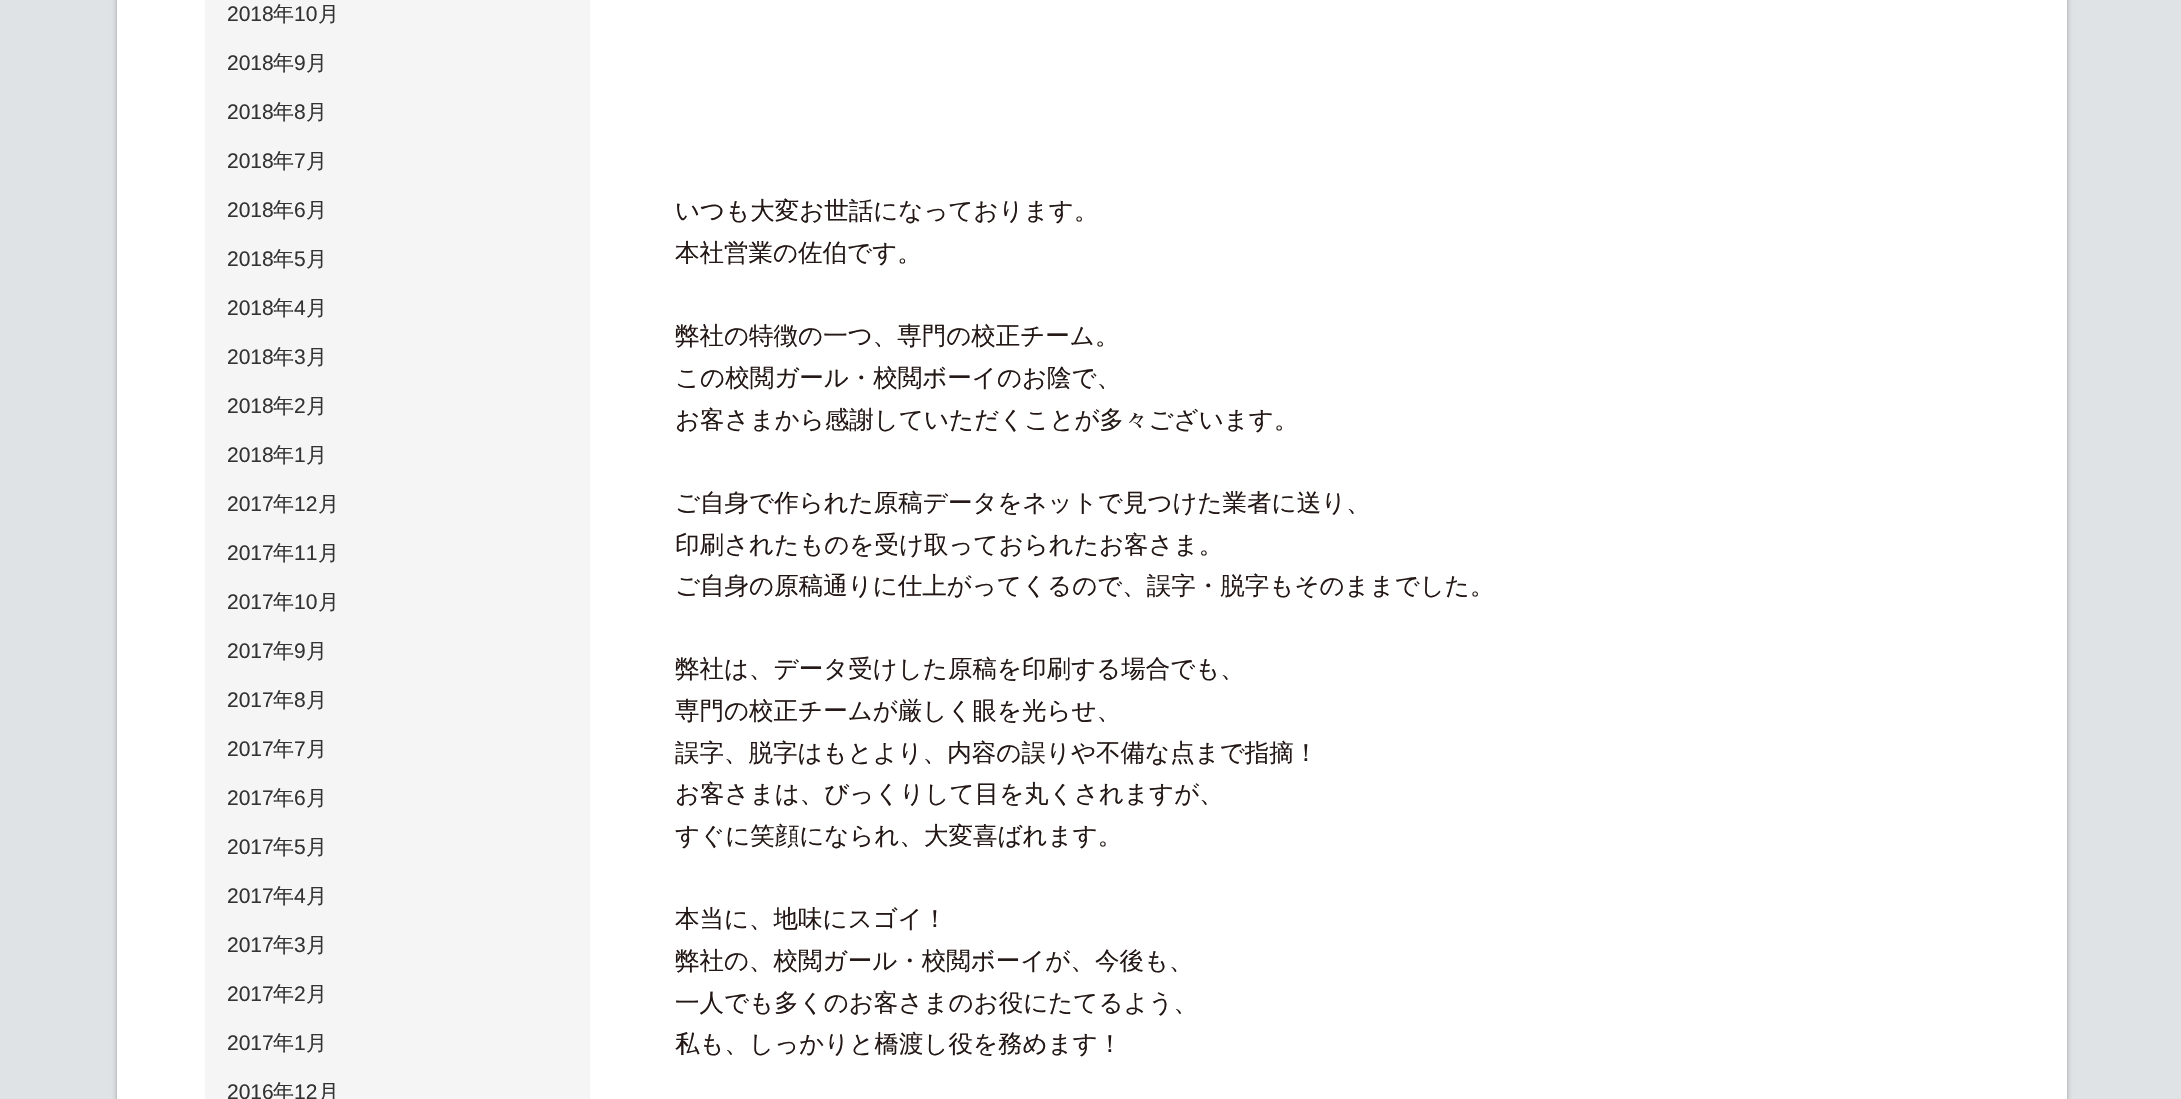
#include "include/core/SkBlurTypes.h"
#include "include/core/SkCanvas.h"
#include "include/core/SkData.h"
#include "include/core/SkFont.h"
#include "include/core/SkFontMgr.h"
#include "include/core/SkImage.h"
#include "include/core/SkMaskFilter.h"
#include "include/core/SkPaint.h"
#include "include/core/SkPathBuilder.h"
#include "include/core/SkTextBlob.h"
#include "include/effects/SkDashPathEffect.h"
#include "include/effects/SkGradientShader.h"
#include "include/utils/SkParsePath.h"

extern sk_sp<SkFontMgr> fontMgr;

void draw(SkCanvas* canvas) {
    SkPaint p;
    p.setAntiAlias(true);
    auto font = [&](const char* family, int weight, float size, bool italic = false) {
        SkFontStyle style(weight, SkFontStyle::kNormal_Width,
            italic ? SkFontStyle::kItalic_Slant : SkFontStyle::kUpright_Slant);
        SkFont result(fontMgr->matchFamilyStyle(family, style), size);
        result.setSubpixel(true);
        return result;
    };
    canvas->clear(0xFFE0E3E6);
    p.setColor(0x4D000000);
    p.setMaskFilter(SkMaskFilter::MakeBlur(kNormal_SkBlurStyle, 2.5f));
    canvas->drawRect(SkRect::MakeLTRB(117, -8, 2067, 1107), p);
    p.setMaskFilter(nullptr);
    p.setColor(0xFFFFFFFF);
    canvas->drawRect(SkRect::MakeLTRB(117, 0, 2067, 1099), p);
    p.setColor(0xFFF5F5F5);
    canvas->drawRect(SkRect::MakeLTRB(205, 0, 590, 1099), p);
    auto font1 = font("Liberation Sans", 400, 21);
    p.setColor(0xFF333333);
    canvas->drawString("2018", 227, 21, font1, p);
    auto font2 = font("WenQuanYi Zen Hei", 500, 21);
    canvas->drawString("年", 273, 21, font2, p);
    canvas->drawString("10", 294, 21, font1, p);
    canvas->drawString("月", 318, 21, font2, p);
    canvas->drawString("2018", 227, 70, font1, p);
    canvas->drawString("年", 273, 70, font2, p);
    canvas->drawString("9", 294, 70, font1, p);
    canvas->drawString("月", 306, 70, font2, p);
    canvas->drawString("2018", 227, 119, font1, p);
    canvas->drawString("年", 273, 119, font2, p);
    canvas->drawString("8", 294, 119, font1, p);
    canvas->drawString("月", 306, 119, font2, p);
    canvas->drawString("2018", 227, 168, font1, p);
    canvas->drawString("年", 273, 168, font2, p);
    canvas->drawString("7", 294, 168, font1, p);
    canvas->drawString("月", 306, 168, font2, p);
    canvas->drawString("2018", 227, 217, font1, p);
    canvas->drawString("年", 273, 217, font2, p);
    canvas->drawString("6", 294, 217, font1, p);
    canvas->drawString("月", 306, 217, font2, p);
    canvas->drawString("2018", 227, 266, font1, p);
    canvas->drawString("年", 273, 266, font2, p);
    canvas->drawString("5", 294, 266, font1, p);
    canvas->drawString("月", 306, 266, font2, p);
    canvas->drawString("2018", 227, 315, font1, p);
    canvas->drawString("年", 273, 315, font2, p);
    canvas->drawString("4", 294, 315, font1, p);
    canvas->drawString("月", 306, 315, font2, p);
    canvas->drawString("2018", 227, 364, font1, p);
    canvas->drawString("年", 273, 364, font2, p);
    canvas->drawString("3", 294, 364, font1, p);
    canvas->drawString("月", 306, 364, font2, p);
    canvas->drawString("2018", 227, 413, font1, p);
    canvas->drawString("年", 273, 413, font2, p);
    canvas->drawString("2", 294, 413, font1, p);
    canvas->drawString("月", 306, 413, font2, p);
    canvas->drawString("2018", 227, 462, font1, p);
    canvas->drawString("年", 273, 462, font2, p);
    canvas->drawString("1", 294, 462, font1, p);
    canvas->drawString("月", 306, 462, font2, p);
    canvas->drawString("2017", 227, 511, font1, p);
    canvas->drawString("年", 273, 511, font2, p);
    canvas->drawString("12", 294, 511, font1, p);
    canvas->drawString("月", 318, 511, font2, p);
    canvas->drawString("2017", 227, 560, font1, p);
    canvas->drawString("年", 273, 560, font2, p);
    canvas->drawString("11", 294, 560, font1, p);
    canvas->drawString("月", 318, 560, font2, p);
    canvas->drawString("2017", 227, 609, font1, p);
    canvas->drawString("年", 273, 609, font2, p);
    canvas->drawString("10", 294, 609, font1, p);
    canvas->drawString("月", 318, 609, font2, p);
    canvas->drawString("2017", 227, 658, font1, p);
    canvas->drawString("年", 273, 658, font2, p);
    canvas->drawString("9", 294, 658, font1, p);
    canvas->drawString("月", 306, 658, font2, p);
    canvas->drawString("2017", 227, 707, font1, p);
    canvas->drawString("年", 273, 707, font2, p);
    canvas->drawString("8", 294, 707, font1, p);
    canvas->drawString("月", 306, 707, font2, p);
    canvas->drawString("2017", 227, 756, font1, p);
    canvas->drawString("年", 273, 756, font2, p);
    canvas->drawString("7", 294, 756, font1, p);
    canvas->drawString("月", 306, 756, font2, p);
    canvas->drawString("2017", 227, 805, font1, p);
    canvas->drawString("年", 273, 805, font2, p);
    canvas->drawString("6", 294, 805, font1, p);
    canvas->drawString("月", 306, 805, font2, p);
    canvas->drawString("2017", 227, 854, font1, p);
    canvas->drawString("年", 273, 854, font2, p);
    canvas->drawString("5", 294, 854, font1, p);
    canvas->drawString("月", 306, 854, font2, p);
    canvas->drawString("2017", 227, 903, font1, p);
    canvas->drawString("年", 273, 903, font2, p);
    canvas->drawString("4", 294, 903, font1, p);
    canvas->drawString("月", 306, 903, font2, p);
    canvas->drawString("2017", 227, 952, font1, p);
    canvas->drawString("年", 273, 952, font2, p);
    canvas->drawString("3", 294, 952, font1, p);
    canvas->drawString("月", 306, 952, font2, p);
    canvas->drawString("2017", 227, 1001, font1, p);
    canvas->drawString("年", 273, 1001, font2, p);
    canvas->drawString("2", 294, 1001, font1, p);
    canvas->drawString("月", 306, 1001, font2, p);
    canvas->drawString("2017", 227, 1050, font1, p);
    canvas->drawString("年", 273, 1050, font2, p);
    canvas->drawString("1", 294, 1050, font1, p);
    canvas->drawString("月", 306, 1050, font2, p);
    canvas->drawString("2016", 227, 1099, font1, p);
    canvas->drawString("年", 273, 1099, font2, p);
    canvas->drawString("12", 294, 1099, font1, p);
    canvas->drawString("月", 318, 1099, font2, p);
    auto font3 = font("WenQuanYi Zen Hei", 500, 24.5f);
    p.setColor(0xFF231815);
    {
        const struct { const char* s; float x, y; } items[] = {
            {"いつも大変お世話になっております。", 675, 219},
            {"本社営業の佐伯です。", 675, 261},
            {"弊社の特徴の一つ、専門の校正チーム。", 675, 344},
            {"この校閲ガール・校閲ボーイのお陰で、", 675, 386},
            {"お客さまから感謝していただくことが多々ございます。", 675, 428},
            {"ご自身で作られた原稿データをネットで見つけた業者に送り、", 675, 511},
            {"印刷されたものを受け取っておられたお客さま。", 675, 553},
            {"ご自身の原稿通りに仕上がってくるので、誤字・脱字もそのままでした。", 675, 594},
            {"弊社は、データ受けした原稿を印刷する場合でも、", 675, 677},
            {"専門の校正チームが厳しく眼を光らせ、", 675, 719},
            {"誤字、脱字はもとより、内容の誤りや不備な点まで指摘！", 675, 761},
            {"お客さまは、びっくりして目を丸くされますが、", 675, 802},
            {"すぐに笑顔になられ、大変喜ばれます。", 675, 844},
            {"本当に、地味にスゴイ！", 675, 927},
            {"弊社の、校閲ガール・校閲ボーイが、今後も、", 675, 969},
            {"一人でも多くのお客さまのお役にたてるよう、", 675, 1011},
            {"私も、しっかりと橋渡し役を務めます！", 675, 1052},
        };
        for (auto [s, x, y] : items) {
            canvas->drawString(s, x, y, font3, p);
        }
    }
}
